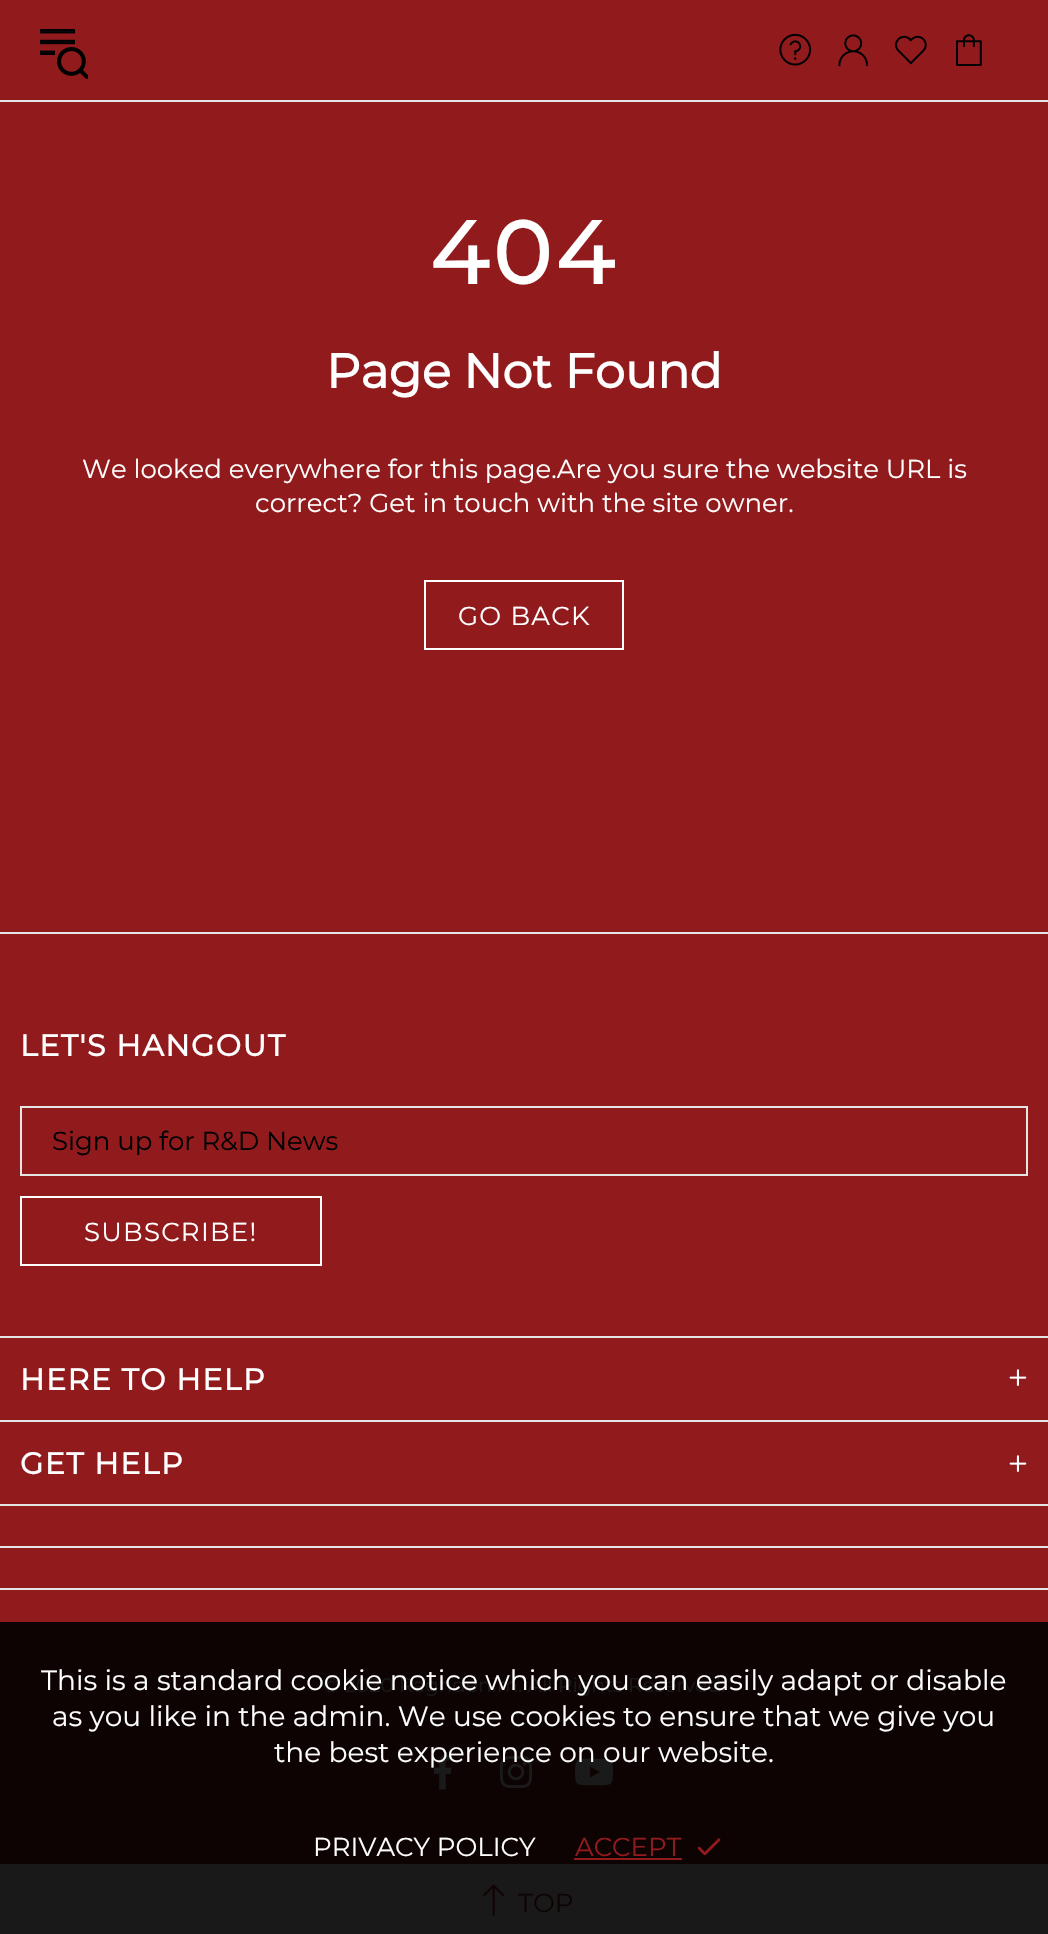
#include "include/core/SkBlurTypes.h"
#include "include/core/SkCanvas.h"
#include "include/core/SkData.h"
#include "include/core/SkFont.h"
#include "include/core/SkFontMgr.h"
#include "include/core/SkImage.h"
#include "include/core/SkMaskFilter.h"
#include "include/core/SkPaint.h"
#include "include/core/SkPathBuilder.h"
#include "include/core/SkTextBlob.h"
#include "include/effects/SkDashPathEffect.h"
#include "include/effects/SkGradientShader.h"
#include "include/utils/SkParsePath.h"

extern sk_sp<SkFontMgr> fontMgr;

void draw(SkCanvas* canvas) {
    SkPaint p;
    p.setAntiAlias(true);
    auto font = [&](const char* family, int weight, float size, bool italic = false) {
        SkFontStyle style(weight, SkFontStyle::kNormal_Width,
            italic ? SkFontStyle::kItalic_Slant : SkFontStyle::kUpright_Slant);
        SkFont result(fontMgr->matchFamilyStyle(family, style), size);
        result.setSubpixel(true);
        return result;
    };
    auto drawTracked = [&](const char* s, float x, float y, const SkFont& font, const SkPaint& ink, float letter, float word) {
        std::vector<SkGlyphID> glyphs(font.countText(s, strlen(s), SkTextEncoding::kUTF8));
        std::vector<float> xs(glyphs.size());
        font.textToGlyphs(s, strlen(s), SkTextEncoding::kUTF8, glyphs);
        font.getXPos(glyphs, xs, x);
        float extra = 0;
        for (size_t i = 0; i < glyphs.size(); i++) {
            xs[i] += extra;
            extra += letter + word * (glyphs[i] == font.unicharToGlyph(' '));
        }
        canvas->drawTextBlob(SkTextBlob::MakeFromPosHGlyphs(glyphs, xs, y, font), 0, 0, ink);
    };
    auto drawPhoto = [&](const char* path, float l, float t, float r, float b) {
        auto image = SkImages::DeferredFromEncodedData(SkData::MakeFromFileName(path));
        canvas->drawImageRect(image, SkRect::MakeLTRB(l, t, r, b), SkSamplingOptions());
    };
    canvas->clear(0xFF911A1C);
    p.setColor(0xFF0E0303);
    canvas->drawRect(SkRect::MakeLTRB(0, 1622, 1048, 1864), p);
    p.setColor(0xFFE5E5E5);
    canvas->drawRect(SkRect::MakeLTRB(0, 100, 1048, 102), p);
    drawPhoto("media/1.png", 40, 29, 88, 79);
    drawPhoto("media/2.png", 779, 33, 812, 66);
    drawPhoto("media/3.png", 838, 34, 869, 67);
    drawPhoto("media/4.png", 895, 35, 927, 65);
    drawPhoto("media/5.png", 956, 34, 982, 66);
    auto font1 = font("Montserrat", 700, 88);
    p.setColor(0xFFFFFFFF);
    drawTracked("404", 430, 284, font1, p, 4.5f, 0);
    auto font2 = font("Montserrat", 700, 48);
    canvas->drawString("Page Not Found", 326, 388, font2, p);
    auto font3 = font("Montserrat", 400, 26);
    canvas->drawString("We looked everywhere for this page.Are you sure the website URL is", 82, 478, font3, p);
    canvas->drawString("correct? Get in touch with the site owner.", 255, 512, font3, p);
    p.setStyle(SkPaint::kStroke_Style);
    p.setStrokeWidth(2);
    canvas->drawRect(SkRect::MakeLTRB(425, 581, 623, 649), p);
    p.setStyle(SkPaint::kFill_Style);
    drawTracked("GO BACK", 458, 625, font3, p, 1.25f, 0);
    p.setColor(0xFFE5E5E5);
    canvas->drawRect(SkRect::MakeLTRB(0, 932, 1048, 934), p);
    auto font4 = font("Montserrat", 700, 30);
    p.setColor(0xFFFFFFFF);
    drawTracked("LET'S HANGOUT", 20, 1056, font4, p, 1.5f, 0);
    p.setStyle(SkPaint::kStroke_Style);
    p.setColor(0xFFE5E5E5);
    canvas->drawRect(SkRect::MakeLTRB(21, 1107, 1027, 1175), p);
    p.setStyle(SkPaint::kFill_Style);
    p.setColor(0xFF000000);
    canvas->drawString("Sign up for R&D News", 52, 1150, font3, p);
    p.setStyle(SkPaint::kStroke_Style);
    p.setColor(0xFFFFFFFF);
    canvas->drawRect(SkRect::MakeLTRB(21, 1197, 321, 1265), p);
    p.setStyle(SkPaint::kFill_Style);
    drawTracked("SUBSCRIBE!", 84, 1241, font3, p, 1.25f, 0);
    p.setColor(0xFFE5E5E5);
    canvas->drawRect(SkRect::MakeLTRB(0, 1336, 1048, 1338), p);
    p.setColor(0xFFFFFFFF);
    drawTracked("HERE TO HELP", 20, 1390, font4, p, 1.5f, 0);
    drawPhoto("media/6.png", 1009, 1369, 1027, 1386);
    p.setColor(0xFFE5E5E5);
    canvas->drawRect(SkRect::MakeLTRB(0, 1420, 1048, 1422), p);
    p.setColor(0xFFFFFFFF);
    drawTracked("GET HELP", 20, 1474, font4, p, 1.5f, 0);
    drawPhoto("media/6.png", 1009, 1455, 1027, 1472);
    {
        const struct { float l, t, r, b; SkColor color; } items[] = {
            {0, 1504, 1048, 1506, 0xFFE5E5E5},
            {0, 1546, 1048, 1548, 0xFFE5E5E5},
            {0, 1588, 1048, 1590, 0xFFE5E5E5},
        };
        for (auto [l, t, r, b, color] : items) {
            p.setColor(color);
            canvas->drawRect(SkRect::MakeLTRB(l, t, r, b), p);
        }
    }
    auto font5 = font("Montserrat", 400, 20);
    p.setColor(0xFF191919);
    canvas->drawString("© 2020 Ragndenim. All Rights Reserved.", 323, 1692, font5, p);
    drawPhoto("media/7.png", 434, 1754, 452, 1790);
    drawPhoto("media/8.png", 500, 1756, 532, 1788);
    drawPhoto("media/9.png", 575, 1758, 613, 1786);
    canvas->drawRect(SkRect::MakeLTRB(0, 1864, 1048, 1934), p);
    drawPhoto("media/10.png", 483, 1884, 504, 1916);
    p.setColor(0xFF0E0303);
    canvas->drawString("TOP", 518, 1912, font3, p);
    auto font6 = font("Montserrat", 400, 28);
    p.setColor(0xFFFFFFFF);
    {
        const struct { const char* s; float x, y; } items[] = {
            {"This is a standard cookie notice which you can easily adapt or disable", 41, 1690},
            {"as you like in the admin. We use cookies to ensure that we give you", 52, 1726},
            {"the best experience on our website.", 274, 1762},
        };
        for (auto [s, x, y] : items) {
            canvas->drawString(s, x, y, font6, p);
        }
    }
    canvas->drawString("PRIVACY POLICY", 313, 1856, font3, p);
    p.setColor(0xFF911A1C);
    canvas->drawString("ACCEPT", 575, 1856, font3, p);
    canvas->drawRect(SkRect::MakeLTRB(574, 1858, 682, 1860), p);
    drawPhoto("media/11.png", 697, 1838, 721, 1856);
}
